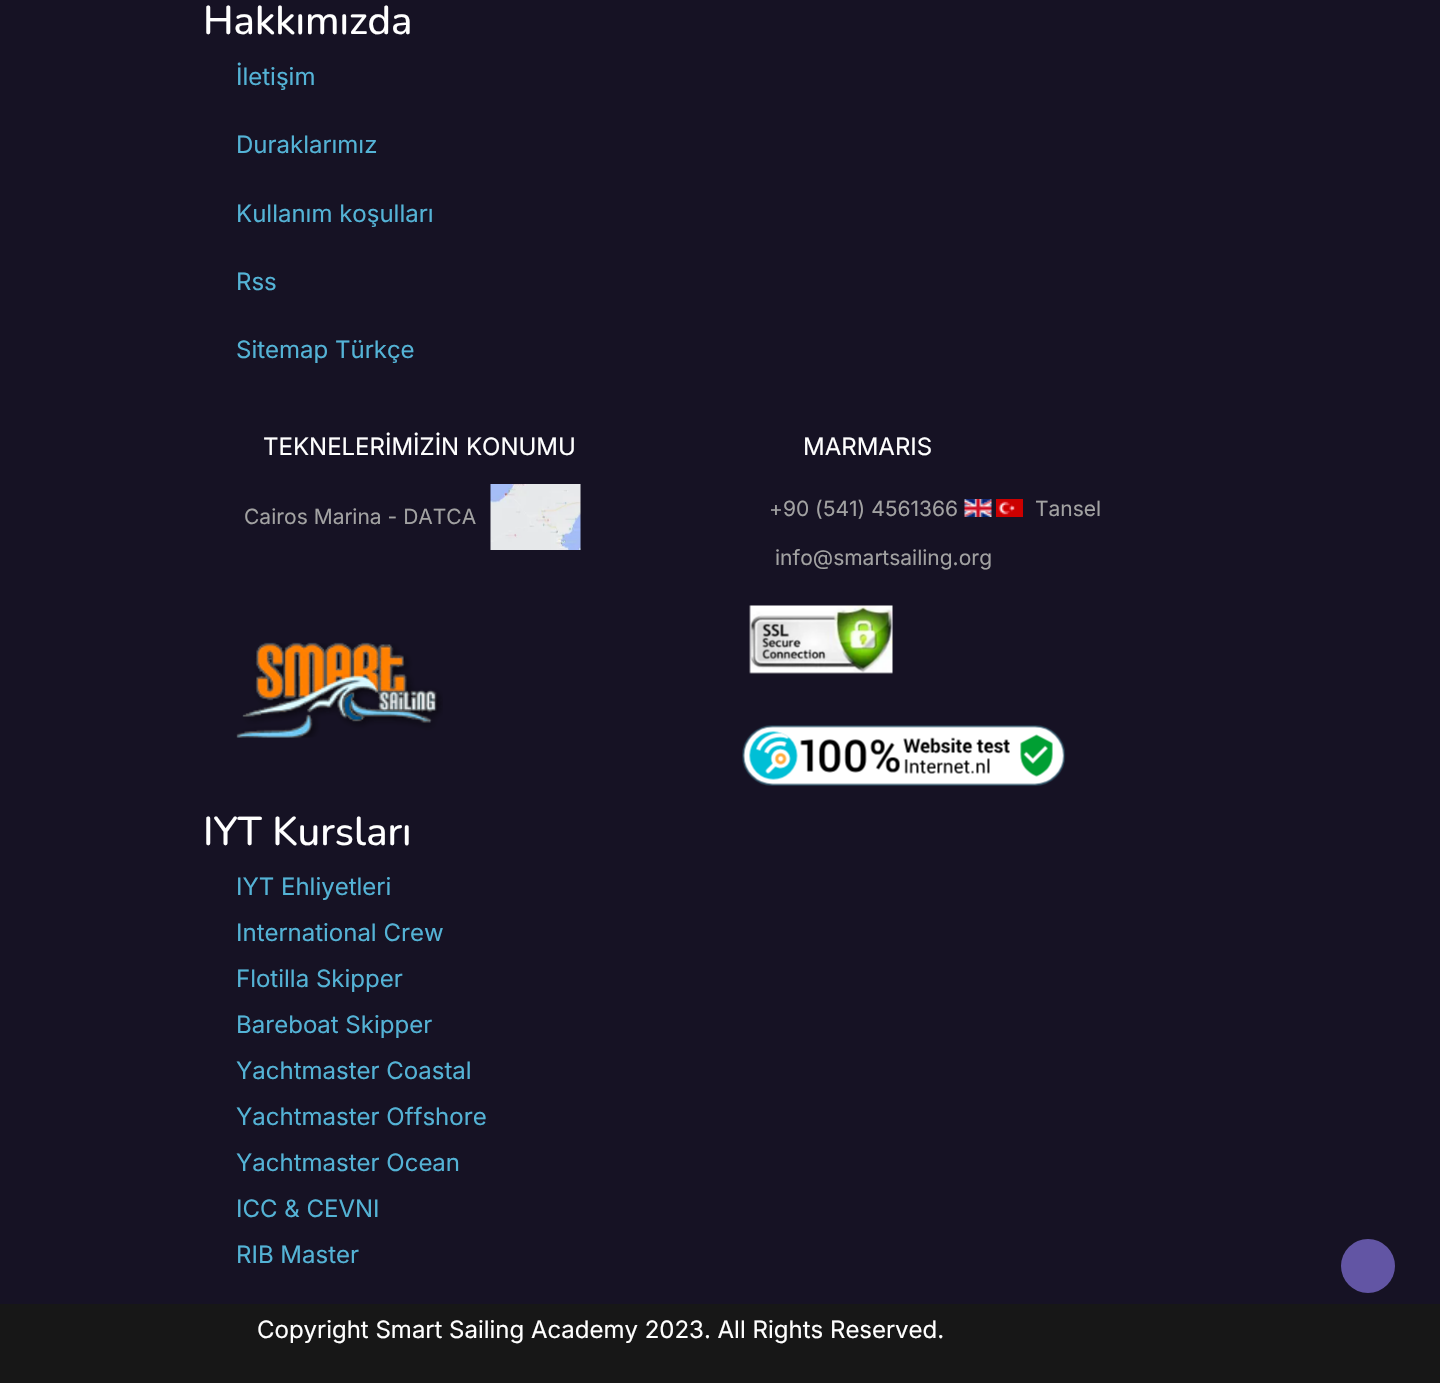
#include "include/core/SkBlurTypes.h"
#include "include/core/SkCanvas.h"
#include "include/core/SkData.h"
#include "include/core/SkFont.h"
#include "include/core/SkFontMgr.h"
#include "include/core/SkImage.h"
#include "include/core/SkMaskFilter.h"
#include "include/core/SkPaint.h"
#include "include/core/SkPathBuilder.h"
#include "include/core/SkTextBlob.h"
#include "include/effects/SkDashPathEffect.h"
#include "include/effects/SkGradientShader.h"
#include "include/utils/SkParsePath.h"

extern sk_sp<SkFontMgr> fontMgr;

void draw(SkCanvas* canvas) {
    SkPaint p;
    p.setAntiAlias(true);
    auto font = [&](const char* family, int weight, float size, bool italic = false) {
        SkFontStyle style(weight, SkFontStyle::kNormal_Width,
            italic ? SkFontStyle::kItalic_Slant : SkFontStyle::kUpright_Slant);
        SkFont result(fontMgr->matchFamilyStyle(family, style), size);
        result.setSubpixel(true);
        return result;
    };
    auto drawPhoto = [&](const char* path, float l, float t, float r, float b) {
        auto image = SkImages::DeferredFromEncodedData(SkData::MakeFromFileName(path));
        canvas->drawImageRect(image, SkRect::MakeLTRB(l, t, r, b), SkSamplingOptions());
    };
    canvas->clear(0xFF171717);
    p.setColor(0xFF161224);
    canvas->drawRect(SkRect::MakeLTRB(0, 0, 1440, 1304), p);
    auto font1 = font("Nunito", 500, 40);
    p.setColor(0xFFFFFFFF);
    canvas->drawString("Hakkımızda", 203, 34, font1, p);
    auto font2 = font("Inter", 400, 24);
    p.setColor(0xFF54B3D6);
    {
        const struct { const char* s; float x, y; } items[] = {
            {"İletişim", 236, 85},
            {"Duraklarımız", 236, 153},
            {"Kullanım koşulları", 236, 222},
            {"Rss", 236, 290},
            {"Sitemap Türkçe", 236, 358},
        };
        for (auto [s, x, y] : items) {
            canvas->drawString(s, x, y, font2, p);
        }
    }
    p.setColor(0xFFFFFFFF);
    canvas->drawString("TEKNELERİMİZİN KONUMU", 263, 455, font2, p);
    auto font3 = font("Inter", 400, 21);
    p.setColor(0xFFA2A2A2);
    canvas->drawString("Cairos Marina - DATCA", 244, 524, font3, p);
    drawPhoto("media/1.png", 490, 484, 581, 550);
    drawPhoto("media/2.png", 236, 642, 443, 738);
    p.setColor(0xFFFFFFFF);
    canvas->drawString("MARMARIS", 803, 455, font2, p);
    p.setColor(0xFFA2A2A2);
    canvas->drawString("+90 (541) 4561366", 769, 516, font3, p);
    drawPhoto("media/3.png", 964, 499, 992, 517);
    drawPhoto("media/4.png", 996, 499, 1023, 517);
    canvas->drawString("Tansel", 1035, 516, font3, p);
    canvas->drawString("info@smartsailing.org", 775, 565, font3, p);
    drawPhoto("media/5.png", 749, 605, 893, 674);
    drawPhoto("media/6.png", 742, 725, 1066, 786);
    p.setColor(0xFFFFFFFF);
    canvas->drawString("IYT Kursları", 203, 845, font1, p);
    p.setColor(0xFF54B3D6);
    {
        const struct { const char* s; float x, y; } items[] = {
            {"IYT Ehliyetleri", 236, 895},
            {"International Crew", 236, 941},
            {"Flotilla Skipper", 236, 987},
            {"Bareboat Skipper", 236, 1033},
            {"Yachtmaster Coastal", 236, 1079},
            {"Yachtmaster Offshore", 236, 1125},
            {"Yachtmaster Ocean", 236, 1171},
            {"ICC & CEVNI", 236, 1217},
            {"RIB Master", 236, 1263},
        };
        for (auto [s, x, y] : items) {
            canvas->drawString(s, x, y, font2, p);
        }
    }
    p.setColor(0xFFFFFFFF);
    canvas->drawString("Copyright Smart Sailing Academy 2023. All Rights Reserved.", 257, 1338, font2, p);
    p.setColor(0xFF6255A4);
    canvas->drawCircle(1368, 1266, 27, p);
}
